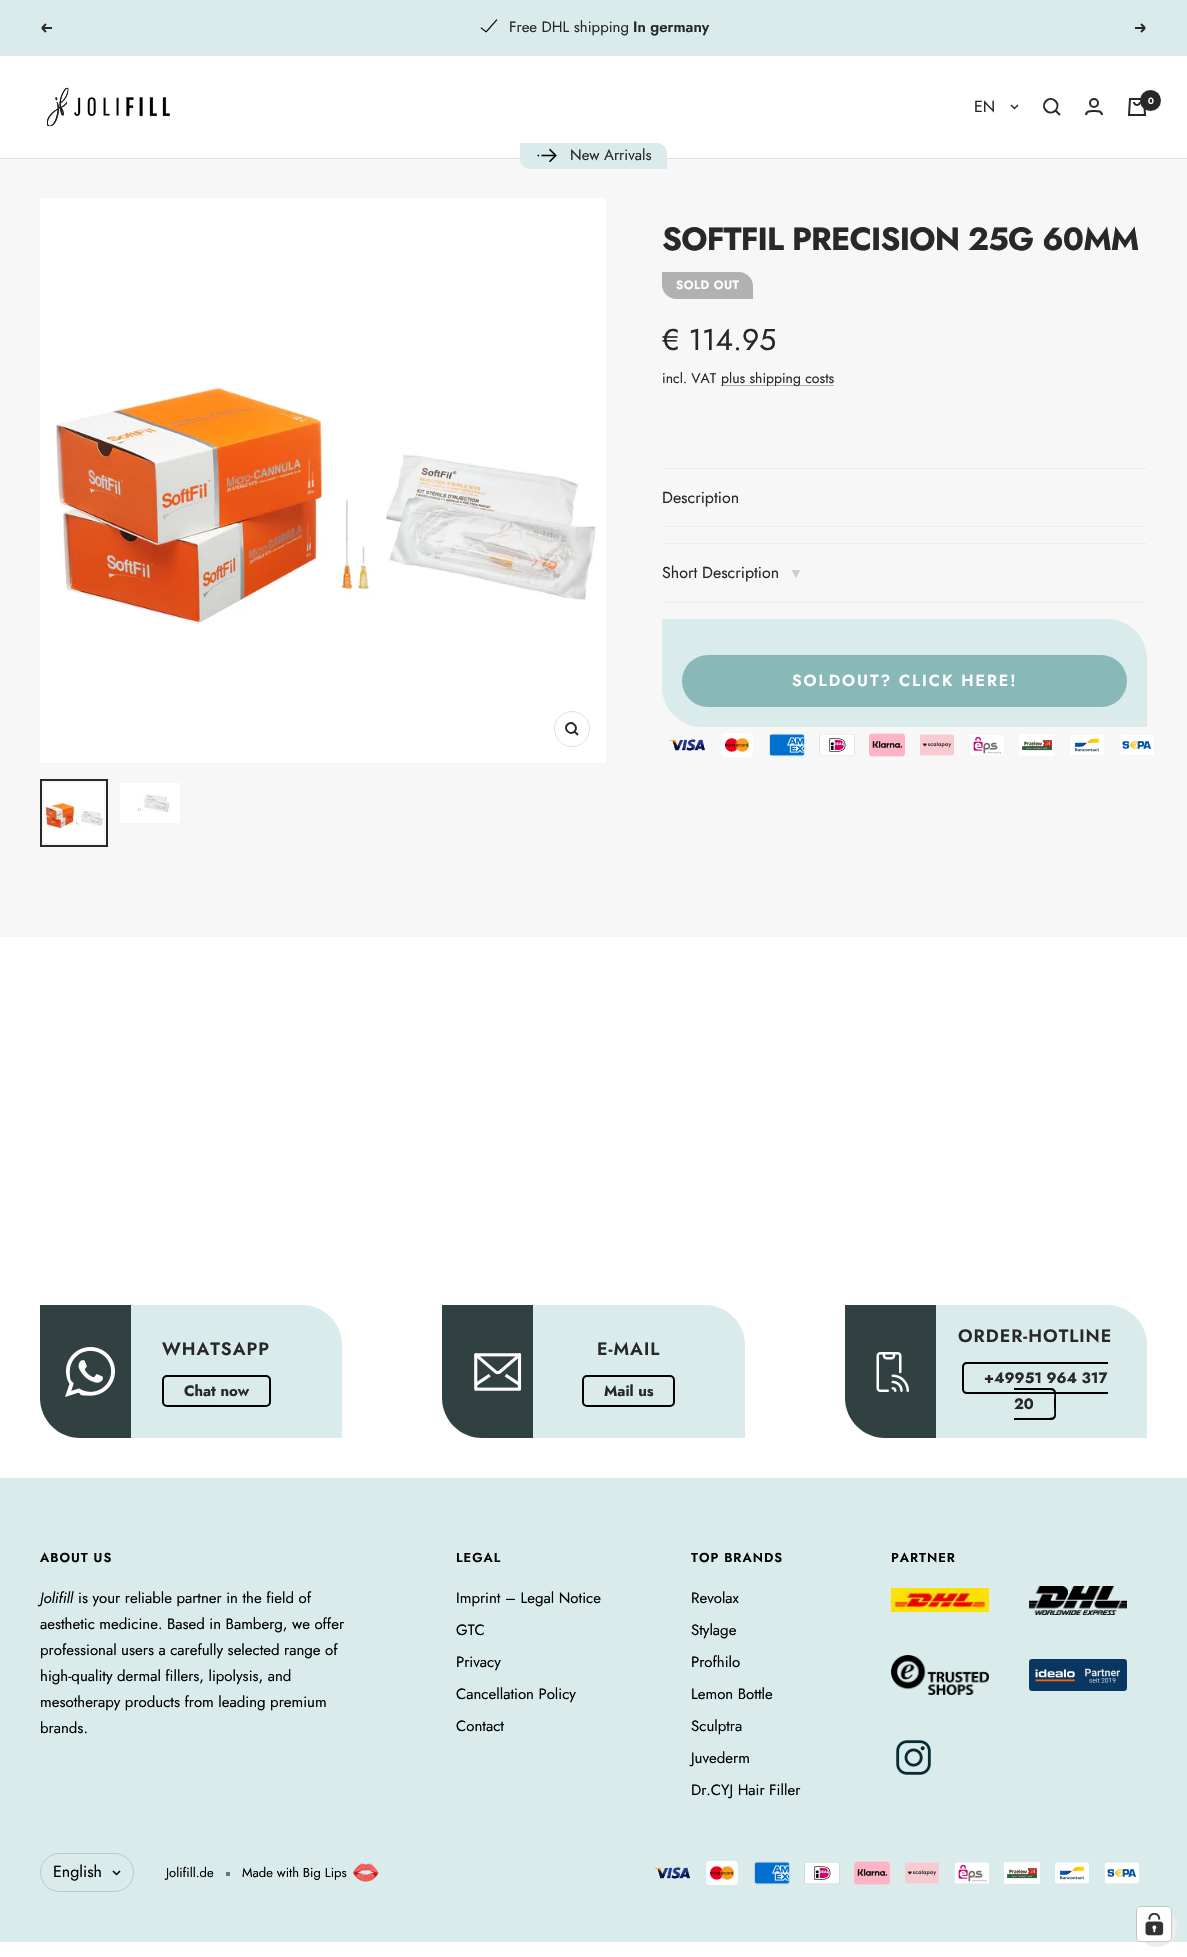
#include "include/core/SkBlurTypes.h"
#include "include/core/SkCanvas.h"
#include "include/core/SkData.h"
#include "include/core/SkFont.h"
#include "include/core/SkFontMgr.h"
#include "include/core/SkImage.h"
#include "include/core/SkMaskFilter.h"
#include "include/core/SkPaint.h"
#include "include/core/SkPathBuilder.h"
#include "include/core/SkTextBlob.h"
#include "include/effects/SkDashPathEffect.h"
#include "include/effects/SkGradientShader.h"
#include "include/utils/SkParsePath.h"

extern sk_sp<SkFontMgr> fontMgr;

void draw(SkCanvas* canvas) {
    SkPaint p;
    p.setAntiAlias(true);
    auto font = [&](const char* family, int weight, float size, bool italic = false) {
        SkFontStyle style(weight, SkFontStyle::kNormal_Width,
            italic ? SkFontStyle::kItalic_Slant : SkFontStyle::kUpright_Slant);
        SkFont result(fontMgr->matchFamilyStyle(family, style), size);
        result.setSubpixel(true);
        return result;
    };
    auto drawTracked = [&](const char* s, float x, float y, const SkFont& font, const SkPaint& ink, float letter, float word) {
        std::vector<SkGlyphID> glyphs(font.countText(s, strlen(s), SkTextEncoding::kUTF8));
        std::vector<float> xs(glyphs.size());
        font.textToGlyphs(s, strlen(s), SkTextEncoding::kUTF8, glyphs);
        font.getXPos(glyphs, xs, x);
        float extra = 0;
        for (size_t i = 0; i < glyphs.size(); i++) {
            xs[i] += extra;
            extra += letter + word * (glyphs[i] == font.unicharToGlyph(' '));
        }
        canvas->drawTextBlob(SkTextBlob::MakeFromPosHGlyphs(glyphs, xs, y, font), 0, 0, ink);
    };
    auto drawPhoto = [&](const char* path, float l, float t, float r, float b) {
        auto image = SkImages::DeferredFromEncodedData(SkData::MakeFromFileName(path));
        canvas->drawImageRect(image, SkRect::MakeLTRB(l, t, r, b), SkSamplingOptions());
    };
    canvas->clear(0xFFFFFFFF);
    p.setColor(0xFFDAEBEB);
    canvas->drawRect(SkRect::MakeLTRB(0, 0, 1187, 56), p);
    p.setStyle(SkPaint::kStroke_Style);
    p.setStrokeWidth(2);
    p.setColor(0xFF282828);
    canvas->drawPath(SkPathBuilder().moveTo(52, 28).lineTo(42, 28).moveTo(42, 28).lineTo(46, 32).moveTo(42, 28).lineTo(46, 24).detach(), p);
    drawPhoto("media/1.png", 480, 19, 498, 33);
    auto font1 = font("Jost", 400, 15);
    p.setStyle(SkPaint::kFill_Style);
    canvas->drawString("Free DHL shipping", 509, 32, font1, p);
    auto font2 = font("Jost", 600, 15);
    canvas->drawString("In germany", 633, 32, font2, p);
    p.setStyle(SkPaint::kStroke_Style);
    canvas->drawPath(SkPathBuilder().moveTo(1135, 28).lineTo(1145, 28).moveTo(1145, 28).lineTo(1141, 32).moveTo(1145, 28).lineTo(1141, 24).detach(), p);
    p.setStyle(SkPaint::kFill_Style);
    p.setColor(0xFFDFDFDF);
    canvas->drawRect(SkRect::MakeLTRB(0, 158, 1187, 159), p);
    drawPhoto("media/2.png", 46, 87, 170, 127);
    auto font3 = font("Jost", 400, 16);
    p.setColor(0xFF282828);
    canvas->drawString("EN", 974, 112, font3, p);
    p.setStyle(SkPaint::kStroke_Style);
    p.setStrokeWidth(1.5f);
    canvas->drawPath(SkPathBuilder().moveTo(1011, 105).lineTo(1014.5f, 108.5f).lineTo(1018, 105).detach(), p);
    p.setStrokeWidth(2);
    canvas->drawPath(SkPathBuilder().moveTo(1055.5f, 110.5f).cubicTo(1061.5f, 104, 1052.5f, 95, 1046, 101).cubicTo(1040, 107.5f, 1049, 116.5f, 1055.5f, 110.5f).close().moveTo(1055.5f, 110.5f).lineTo(1060, 115).detach(), p);
    canvas->drawCircle(1094, 103, 4, p);
    canvas->drawPath(SkPathBuilder().moveTo(1086, 115).cubicTo(1086, 110.5f, 1091, 111, 1094, 111).cubicTo(1097, 111, 1102, 110.5f, 1102, 115).detach(), p);
    drawPhoto("media/3.png", 1127, 98, 1147, 116);
    p.setStyle(SkPaint::kFill_Style);
    canvas->drawCircle(1150.5f, 100.5f, 10.5f, p);
    auto font4 = font("Jost", 600, 9);
    p.setColor(0xFFFFFFFF);
    canvas->drawString("0", 1148, 104, font4, p);
    p.setColor(0xFFF7F7F7);
    canvas->drawRect(SkRect::MakeLTRB(0, 159, 1187, 937), p);
    p.setColor(0xFFDAEBEB);
    canvas->drawPath(SkPathBuilder().moveTo(520, 143).lineTo(657, 143).cubicTo(662.5f, 143, 667, 147.5f, 667, 153).lineTo(667, 169).lineTo(530, 169).cubicTo(524.5f, 169, 520, 164.5f, 520, 159).close().detach(), p);
    drawPhoto("media/4.png", 537, 148, 557, 163);
    p.setColor(0xFF282828);
    canvas->drawString("New Arrivals", 570, 160, font1, p);
    drawPhoto("media/5.png", 40, 198, 606, 763);
    p.setStyle(SkPaint::kStroke_Style);
    p.setStrokeWidth(1);
    p.setColor(0xFFDFDFDF);
    canvas->drawCircle(572, 729, 17.5f, p);
    p.setStrokeWidth(2);
    p.setColor(0xFF282828);
    canvas->drawPath(SkPathBuilder().moveTo(574.5f, 731.5f).cubicTo(579, 727, 572, 720, 567.5f, 724.5f).cubicTo(563, 729, 570, 736, 574.5f, 731.5f).close().moveTo(574.5f, 731.5f).lineTo(578, 735).detach(), p);
    drawPhoto("media/6.png", 44, 783, 104, 843);
    canvas->drawRect(SkRect::MakeLTRB(41, 780, 107, 846), p);
    drawPhoto("media/7.png", 120, 783, 180, 823);
    auto font5 = font("Jost", 700, 32);
    p.setStyle(SkPaint::kFill_Style);
    drawTracked("SOFTFIL PRECISION 25G 60MM", 662, 250, font5, p, -0.8f, 0);
    p.setColor(0xFFB1B1B1);
    canvas->drawPath(SkPathBuilder().moveTo(662, 272).lineTo(739, 272).cubicTo(746.5f, 272, 753, 278.5f, 753, 286).lineTo(753, 299).lineTo(676, 299).cubicTo(668.5f, 299, 662, 292.5f, 662, 285).close().detach(), p);
    auto font6 = font("Jost", 600, 12);
    p.setColor(0xFFFFFFFF);
    drawTracked("SOLD OUT", 676, 289, font6, p, 0.5f, 0);
    auto font7 = font("Jost", 400, 30);
    p.setColor(0xFF282828);
    canvas->drawString("€ 114.95", 662, 350, font7, p);
    auto font8 = font("Jost", 400, 14);
    canvas->drawString("incl. VAT", 662, 383, font8, p);
    p.setColor(0xFFAFAFAF);
    canvas->drawRect(SkRect::MakeLTRB(721, 385, 834, 386), p);
    p.setColor(0xFF282828);
    canvas->drawString("plus shipping costs", 721, 383, font8, p);
    p.setColor(0xFFEDEDED);
    canvas->drawRect(SkRect::MakeLTRB(662, 468, 1147, 469), p);
    canvas->drawRect(SkRect::MakeLTRB(662, 526, 1147, 527), p);
    p.setColor(0xFF282828);
    canvas->drawString("Description", 662, 503, font3, p);
    p.setColor(0xFFEDEDED);
    canvas->drawRect(SkRect::MakeLTRB(662, 543, 1147, 544), p);
    canvas->drawRect(SkRect::MakeLTRB(662, 602, 1147, 603), p);
    p.setColor(0xFF282828);
    canvas->drawString("Short Description", 662, 578, font3, p);
    auto font9 = font("Liberation Sans", 400, 14);
    p.setColor(0xFFCECECE);
    canvas->drawString("▼", 789, 578, font9, p);
    p.setColor(0xFFDAEBEB);
    canvas->drawPath(SkPathBuilder().moveTo(662, 619).lineTo(1107, 619).cubicTo(1129, 619, 1147, 637, 1147, 659).lineTo(1147, 727).lineTo(702, 727).cubicTo(680, 727, 662, 709, 662, 687).close().detach(), p);
    p.setColor(0xFF88B8B8);
    canvas->drawRoundRect(SkRect::MakeLTRB(682, 655, 1127, 707), 26, 26, p);
    auto font10 = font("Jost", 600, 16);
    p.setColor(0xFFFFFFFF);
    drawTracked("SOLDOUT? CLICK HERE!", 792, 686, font10, p, 2, 0);
    drawPhoto("media/8.png", 669, 739, 705, 751);
    drawPhoto("media/9.png", 721, 733, 753, 757);
    drawPhoto("media/10.png", 769, 733, 805, 757);
    drawPhoto("media/11.png", 819, 734, 855, 756);
    drawPhoto("media/12.png", 869, 733, 905, 757);
    drawPhoto("media/13.png", 920, 734, 954, 756);
    drawPhoto("media/14.png", 970, 735, 1004, 755);
    drawPhoto("media/15.png", 1019, 734, 1055, 756);
    drawPhoto("media/16.png", 1070, 735, 1104, 755);
    drawPhoto("media/17.png", 1120, 735, 1154, 755);
    p.setColor(0xFF314040);
    canvas->drawPath(SkPathBuilder().moveTo(40, 1305).lineTo(131, 1305).lineTo(131, 1438).lineTo(80, 1438).cubicTo(58, 1438, 40, 1420, 40, 1398).close().detach(), p);
    p.setColor(0xFFDAEBEB);
    canvas->drawPath(SkPathBuilder().moveTo(131, 1305).lineTo(302, 1305).cubicTo(324, 1305, 342, 1323, 342, 1345).lineTo(342, 1438).lineTo(131, 1438).close().detach(), p);
    drawPhoto("media/18.png", 65, 1347, 115, 1397);
    auto font11 = font("Jost", 600, 18);
    p.setColor(0xFF282828);
    drawTracked("WHATSAPP", 162, 1355, font11, p, 1, 0);
    p.setStyle(SkPaint::kStroke_Style);
    p.setColor(0xFF000000);
    canvas->drawRoundRect(SkRect::MakeLTRB(163, 1376, 270, 1406), 4, 4, p);
    auto font12 = font("Jost", 700, 15);
    p.setStyle(SkPaint::kFill_Style);
    p.setColor(0xFF282828);
    canvas->drawString("Chat now", 184, 1396, font12, p);
    p.setColor(0xFF314040);
    canvas->drawPath(SkPathBuilder().moveTo(442, 1305).lineTo(533, 1305).lineTo(533, 1438).lineTo(482, 1438).cubicTo(460, 1438, 442, 1420, 442, 1398).close().detach(), p);
    p.setColor(0xFFDAEBEB);
    canvas->drawPath(SkPathBuilder().moveTo(533, 1305).lineTo(705, 1305).cubicTo(727, 1305, 745, 1323, 745, 1345).lineTo(745, 1438).lineTo(533, 1438).close().detach(), p);
    drawPhoto("media/19.png", 474, 1353, 522, 1391);
    p.setColor(0xFF282828);
    drawTracked("E-MAIL", 597, 1355, font11, p, 1, 0);
    p.setStyle(SkPaint::kStroke_Style);
    p.setColor(0xFF000000);
    canvas->drawRoundRect(SkRect::MakeLTRB(583, 1376, 674, 1406), 4, 4, p);
    p.setStyle(SkPaint::kFill_Style);
    p.setColor(0xFF282828);
    canvas->drawString("Mail us", 604, 1396, font12, p);
    p.setColor(0xFF314040);
    canvas->drawPath(SkPathBuilder().moveTo(845, 1305).lineTo(936, 1305).lineTo(936, 1438).lineTo(885, 1438).cubicTo(863, 1438, 845, 1420, 845, 1398).close().detach(), p);
    p.setColor(0xFFDAEBEB);
    canvas->drawPath(SkPathBuilder().moveTo(936, 1305).lineTo(1107, 1305).cubicTo(1129, 1305, 1147, 1323, 1147, 1345).lineTo(1147, 1438).lineTo(936, 1438).close().detach(), p);
    drawPhoto("media/20.png", 876, 1352, 909, 1392);
    p.setColor(0xFF282828);
    drawTracked("ORDER-HOTLINE", 958, 1342, font11, p, 1, 0);
    p.setColor(0xFF000000);
    canvas->drawPath(SkPathBuilder(SkPathFillType::kEvenOdd).moveTo(967, 1362).lineTo(1108, 1362).lineTo(1108, 1394).lineTo(967, 1394).cubicTo(964, 1394, 962, 1392, 962, 1389).lineTo(962, 1367).cubicTo(962, 1364, 964, 1362, 967, 1362).close().moveTo(967, 1364).lineTo(1108, 1364).lineTo(1108, 1392).lineTo(967, 1392).cubicTo(965, 1392, 964, 1391, 964, 1389).lineTo(964, 1367).cubicTo(964, 1365, 965, 1364, 967, 1364).close().detach(), p);
    p.setColor(0xFF282828);
    canvas->drawString("+49951 964 317", 984, 1383, font12, p);
    p.setColor(0xFF000000);
    canvas->drawPath(SkPathBuilder(SkPathFillType::kEvenOdd).moveTo(1014, 1388).lineTo(1051, 1388).cubicTo(1054, 1388, 1056, 1390, 1056, 1393).lineTo(1056, 1415).cubicTo(1056, 1418, 1054, 1420, 1051, 1420).lineTo(1014, 1420).close().moveTo(1014, 1390).lineTo(1045, 1390).cubicTo(1057, 1390, 1054, 1391, 1054, 1404).cubicTo(1054, 1417, 1057, 1418, 1045, 1418).lineTo(1014, 1418).close().detach(), p);
    p.setColor(0xFF282828);
    canvas->drawString("20", 1014, 1409, font12, p);
    p.setColor(0xFFDAEBEB);
    canvas->drawRect(SkRect::MakeLTRB(0, 1478, 1187, 1942), p);
    auto font13 = font("Jost", 600, 13);
    p.setColor(0xFF000000);
    drawTracked("ABOUT US", 40, 1562, font13, p, 1, 0);
    auto font14 = font("Jost", 400, 15, true);
    canvas->drawString("Jolifill", 40, 1603, font14, p);
    {
        const struct { const char* s; float x, y; } items[] = {
            {"is your reliable partner in the field of", 78, 1603},
            {"aesthetic medicine. Based in Bamberg, we offer", 40, 1629},
            {"professional users a carefully selected range of", 40, 1655},
            {"high-quality dermal fillers, lipolysis, and", 40, 1681},
            {"mesotherapy products from leading premium", 40, 1707},
            {"brands.", 40, 1733},
        };
        for (auto [s, x, y] : items) {
            canvas->drawString(s, x, y, font1, p);
        }
    }
    drawTracked("LEGAL", 456, 1562, font13, p, 1, 0);
    {
        const struct { const char* s; float x, y; } items[] = {
            {"Imprint – Legal Notice", 456, 1603},
            {"GTC", 456, 1635},
            {"Privacy", 456, 1667},
            {"Cancellation Policy", 456, 1699},
            {"Contact", 456, 1731},
        };
        for (auto [s, x, y] : items) {
            canvas->drawString(s, x, y, font1, p);
        }
    }
    drawTracked("TOP BRANDS", 691, 1562, font13, p, 1, 0);
    {
        const struct { const char* s; float x, y; } items[] = {
            {"Revolax", 691, 1603},
            {"Stylage", 691, 1635},
            {"Profhilo", 691, 1667},
            {"Lemon Bottle", 691, 1699},
            {"Sculptra", 691, 1731},
            {"Juvederm", 691, 1763},
            {"Dr.CYJ Hair Filler", 691, 1795},
        };
        for (auto [s, x, y] : items) {
            canvas->drawString(s, x, y, font1, p);
        }
    }
    drawTracked("PARTNER", 891, 1562, font13, p, 1, 0);
    drawPhoto("media/21.png", 891, 1588, 989, 1612);
    drawPhoto("media/22.png", 1029, 1586, 1127, 1615);
    drawPhoto("media/23.png", 891, 1655, 989, 1695);
    drawPhoto("media/24.png", 1029, 1659, 1127, 1691);
    drawPhoto("media/25.png", 896, 1740, 931, 1775);
    p.setStyle(SkPaint::kStroke_Style);
    p.setStrokeWidth(1);
    p.setColor(0xFFB9C8C8);
    canvas->drawRoundRect(SkRect::MakeLTRB(40.5f, 1853.5f, 133.5f, 1891.5f), 19, 19, p);
    p.setStyle(SkPaint::kFill_Style);
    p.setColor(0xFF000000);
    canvas->drawString("English", 53, 1877, font3, p);
    p.setStyle(SkPaint::kStroke_Style);
    p.setStrokeWidth(1.5f);
    canvas->drawPath(SkPathBuilder().moveTo(113, 1871).lineTo(116.5f, 1874.5f).lineTo(120, 1871).detach(), p);
    auto font15 = font("Jost", 400, 13);
    p.setStyle(SkPaint::kFill_Style);
    canvas->drawString("Jolifill.de", 166, 1877, font15, p);
    p.setColor(0xFF6D7676);
    canvas->drawRect(SkRect::MakeLTRB(226, 1872, 230, 1876), p);
    p.setColor(0xFF000000);
    canvas->drawString("Made with Big Lips", 242, 1877, font15, p);
    drawPhoto("media/26.png", 352, 1863, 379, 1882);
    drawPhoto("media/27.png", 654, 1867, 690, 1879);
    drawPhoto("media/28.png", 706, 1861, 738, 1885);
    drawPhoto("media/29.png", 754, 1861, 790, 1885);
    drawPhoto("media/30.png", 804, 1862, 840, 1884);
    drawPhoto("media/31.png", 854, 1861, 890, 1885);
    drawPhoto("media/32.png", 905, 1862, 939, 1884);
    drawPhoto("media/33.png", 955, 1862, 989, 1884);
    drawPhoto("media/34.png", 1004, 1862, 1040, 1884);
    drawPhoto("media/35.png", 1055, 1862, 1089, 1884);
    drawPhoto("media/36.png", 1105, 1862, 1139, 1884);
    p.setColor(0xFFEDEDED);
    canvas->drawCircle(1157, 1927, 20, p);
    p.setStyle(SkPaint::kStroke_Style);
    p.setStrokeWidth(1);
    p.setColor(0x26000000);
    canvas->drawRoundRect(SkRect::MakeLTRB(1136.5f, 1906.5f, 1171.5f, 1941.5f), 4.5f, 4.5f, p);
    p.setStyle(SkPaint::kFill_Style);
    p.setColor(0xFFFFFFFF);
    canvas->drawRoundRect(SkRect::MakeLTRB(1137, 1907, 1171, 1941), 4, 4, p);
    drawPhoto("media/37.png", 1145, 1913, 1164, 1936);
}
